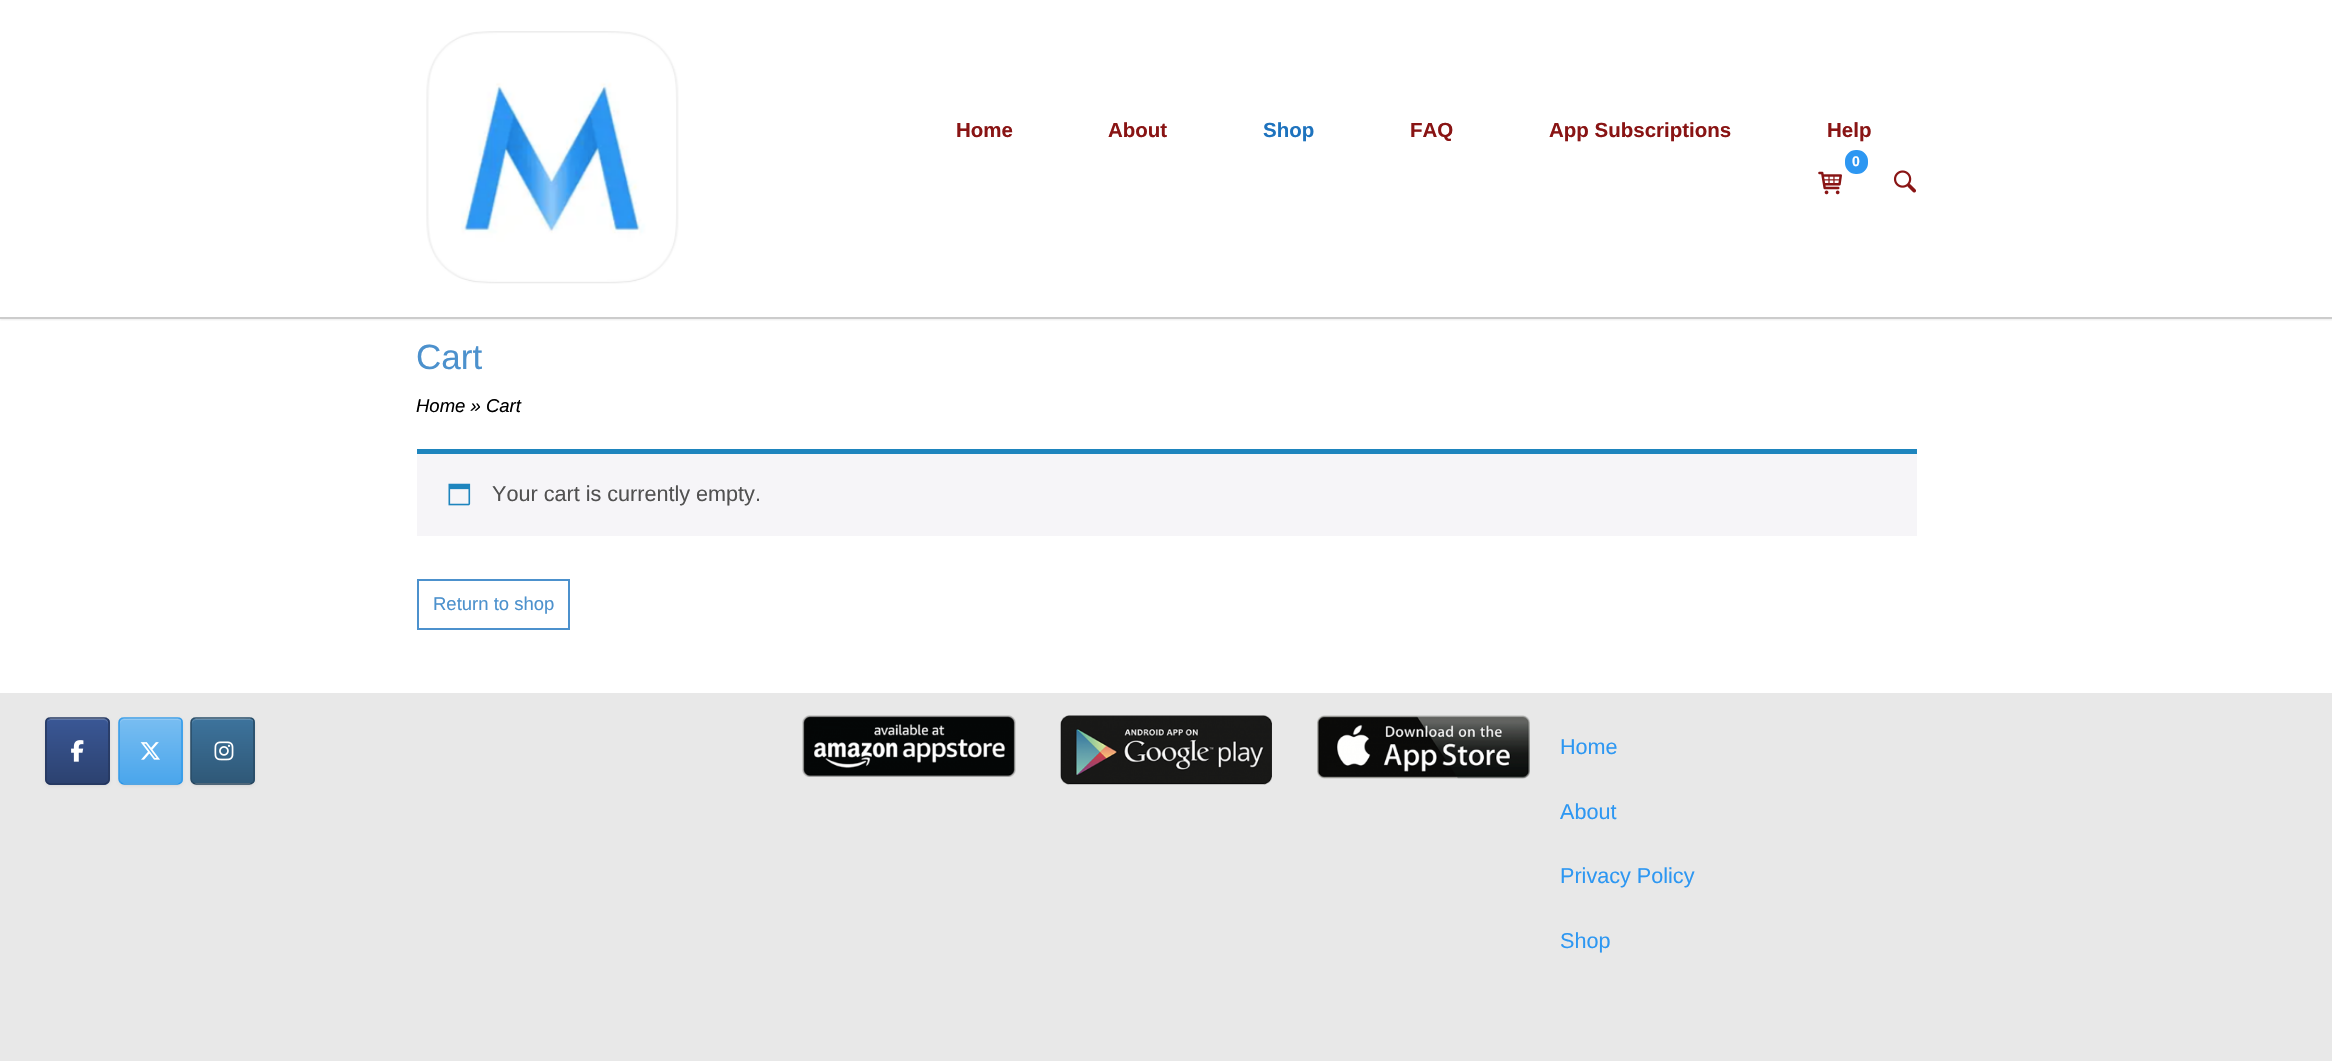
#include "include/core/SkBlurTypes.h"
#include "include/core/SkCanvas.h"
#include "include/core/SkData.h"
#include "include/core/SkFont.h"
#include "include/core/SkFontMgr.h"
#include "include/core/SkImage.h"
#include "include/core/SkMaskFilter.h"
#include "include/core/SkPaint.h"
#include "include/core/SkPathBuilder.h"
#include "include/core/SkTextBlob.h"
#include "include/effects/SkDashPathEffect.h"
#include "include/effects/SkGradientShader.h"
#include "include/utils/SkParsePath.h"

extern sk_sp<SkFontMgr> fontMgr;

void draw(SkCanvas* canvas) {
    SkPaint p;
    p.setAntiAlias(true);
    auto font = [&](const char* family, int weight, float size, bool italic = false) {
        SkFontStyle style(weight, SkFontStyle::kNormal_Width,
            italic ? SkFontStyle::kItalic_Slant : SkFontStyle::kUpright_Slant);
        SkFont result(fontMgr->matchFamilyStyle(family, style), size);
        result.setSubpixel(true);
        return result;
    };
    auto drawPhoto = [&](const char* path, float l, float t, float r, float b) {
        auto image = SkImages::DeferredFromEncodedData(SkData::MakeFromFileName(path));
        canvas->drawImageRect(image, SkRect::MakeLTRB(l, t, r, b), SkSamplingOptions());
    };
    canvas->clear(0xFFFFFFFF);
    canvas->save();
    canvas->clipRect(SkRect::MakeLTRB(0, 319, 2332, 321));
    p.setColor(0x12000000);
    p.setMaskFilter(SkMaskFilter::MakeBlur(kNormal_SkBlurStyle, 1));
    canvas->drawRect(SkRect::MakeLTRB(0, 2, 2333, 320), p);
    p.setMaskFilter(nullptr);
    canvas->restore();
    p.setColor(0xFFCCCCCC);
    canvas->drawRect(SkRect::MakeLTRB(0, 317, 2332, 319), p);
    drawPhoto("media/1.png", 426, 31, 679, 284);
    auto font1 = font("Liberation Sans", 700, 20.5f);
    p.setColor(0xFF891414);
    canvas->drawString("Home", 956, 137, font1, p);
    canvas->drawString("About", 1108, 137, font1, p);
    p.setColor(0xFF1E73BE);
    canvas->drawString("Shop", 1263, 137, font1, p);
    p.setColor(0xFF891414);
    {
        const struct { const char* s; float x, y; } items[] = {
            {"FAQ", 1410, 137},
            {"App Subscriptions", 1549, 137},
            {"Help", 1827, 137},
        };
        for (auto [s, x, y] : items) {
            canvas->drawString(s, x, y, font1, p);
        }
    }
    p.setColor(0xFF2D97F2);
    canvas->drawRoundRect(SkRect::MakeLTRB(1843.5f, 148.5f, 1869.5f, 175.5f), 12.5f, 12.5f, p);
    p.setStyle(SkPaint::kStroke_Style);
    p.setStrokeWidth(3);
    p.setColor(0xFFFFFFFF);
    canvas->drawRoundRect(SkRect::MakeLTRB(1843.5f, 148.5f, 1869.5f, 175.5f), 12.5f, 12.5f, p);
    auto font2 = font("Liberation Sans", 700, 14);
    p.setStyle(SkPaint::kFill_Style);
    canvas->drawString("0", 1852, 166, font2, p);
    drawPhoto("media/2.png", 1818, 171, 1842, 195);
    drawPhoto("media/3.png", 1893, 170, 1916, 193);
    auto font3 = font("Liberation Sans", 400, 35);
    p.setColor(0xFF4C91CD);
    canvas->drawString("Cart", 416, 369, font3, p);
    auto font4 = font("Liberation Sans", 400, 18.5f, true);
    p.setColor(0xFF000000);
    canvas->drawString("Home » Cart", 416, 412, font4, p);
    p.setColor(0xFFF6F5F8);
    canvas->drawRect(SkRect::MakeLTRB(417, 454, 1917, 536), p);
    p.setColor(0xFF1E85BE);
    canvas->drawRect(SkRect::MakeLTRB(417, 449, 1917, 454), p);
    drawPhoto("media/4.png", 448, 483, 471, 506);
    auto font5 = font("Liberation Sans", 400, 21.6f);
    p.setColor(0xFF515151);
    canvas->drawString("Your cart is currently empty.", 492, 501, font5, p);
    p.setStyle(SkPaint::kStroke_Style);
    p.setStrokeWidth(2);
    p.setColor(0xFF4C91CD);
    canvas->drawRect(SkRect::MakeLTRB(418, 580, 569, 629), p);
    auto font6 = font("Liberation Sans", 400, 18.5f);
    p.setStyle(SkPaint::kFill_Style);
    canvas->drawString("Return to shop", 433, 610, font6, p);
    p.setColor(0xFFE8E8E8);
    canvas->drawRect(SkRect::MakeLTRB(0, 693, 2332, 1061), p);
    p.setColor(0x12000000);
    p.setMaskFilter(SkMaskFilter::MakeBlur(kNormal_SkBlurStyle, 1.5f));
    canvas->drawRoundRect(SkRect::MakeLTRB(45, 719, 110, 786), 6, 6, p);
    p.setMaskFilter(nullptr);
    canvas->save();
    canvas->clipPath(SkPathBuilder().moveTo(51, 717).lineTo(104, 717).cubicTo(107.5f, 717, 110, 719.5f, 110, 723).lineTo(110, 779).cubicTo(110, 782.5f, 107.5f, 785, 104, 785).lineTo(51, 785).cubicTo(47.5f, 785, 45, 782.5f, 45, 779).lineTo(45, 723).cubicTo(45, 719.5f, 47.5f, 717, 51, 717).close().detach(), true);
    {
        const SkColor colors[] = {0xFF2C4270, 0xFF3A5795};
        const float stops[] = {0, 1};
        const SkPoint ends[] = {{47, 783}, {47, 719}};
        p.setShader(SkGradientShader::MakeLinear(ends, colors, stops, 2, SkTileMode::kClamp));
        p.setAlpha(255);
    }
    canvas->drawRect(SkRect::MakeLTRB(45, 719, 110, 783), p);
    {
        const SkColor colors[] = {0xFF2C4270, 0xFF3A5795};
        const float stops[] = {0, 1};
        const SkPoint ends[] = {{47, 848}, {47, 783}};
        p.setShader(SkGradientShader::MakeLinear(ends, colors, stops, 2, SkTileMode::kClamp));
        p.setAlpha(255);
    }
    canvas->drawRect(SkRect::MakeLTRB(45, 783, 110, 785), p);
    canvas->restore();
    p.setShader(nullptr);
    p.setColor(0xFF6179AA);
    canvas->drawPath(SkPathBuilder().moveTo(50, 720).lineTo(104, 720).cubicTo(106, 720, 108, 722, 108, 724).lineTo(108, 723).cubicTo(108, 721, 106, 719, 104, 719).lineTo(51, 719).cubicTo(50, 719, 48, 720, 48, 721).close().detach(), p);
    p.setStyle(SkPaint::kStroke_Style);
    p.setStrokeWidth(1.5f);
    p.setColor(0xFF273B65);
    canvas->drawPath(SkPathBuilder().moveTo(47, 719).cubicTo(48, 718, 49, 718, 50.5f, 718).lineTo(104, 718).cubicTo(105.5f, 718, 106.5f, 718, 107.5f, 719).detach(), p);
    p.setColor(0xFF25375E);
    canvas->drawPath(SkPathBuilder().moveTo(107.5f, 719).cubicTo(108.5f, 720, 109, 721, 109, 722.5f).lineTo(109, 779).cubicTo(109, 780.5f, 108.5f, 781.5f, 107.5f, 782.5f).detach(), p);
    p.setColor(0xFF203053);
    canvas->drawPath(SkPathBuilder().moveTo(107.5f, 782.5f).cubicTo(106.5f, 783.5f, 105.5f, 784, 104, 784).lineTo(50.5f, 784).cubicTo(49, 784, 48, 783.5f, 47, 782.5f).detach(), p);
    p.setColor(0xFF25375E);
    canvas->drawPath(SkPathBuilder().moveTo(47, 782.5f).cubicTo(46, 781.5f, 46, 780.5f, 46, 779).lineTo(46, 722.5f).cubicTo(46, 721, 46, 720, 47, 719).detach(), p);
    drawPhoto("media/5.png", 71, 740, 84, 762);
    p.setStyle(SkPaint::kFill_Style);
    p.setColor(0x12000000);
    p.setMaskFilter(SkMaskFilter::MakeBlur(kNormal_SkBlurStyle, 1.5f));
    canvas->drawRoundRect(SkRect::MakeLTRB(119, 719, 183, 786), 6, 6, p);
    p.setMaskFilter(nullptr);
    canvas->save();
    canvas->clipPath(SkPathBuilder().moveTo(125, 717).lineTo(177, 717).cubicTo(180.5f, 717, 183, 719.5f, 183, 723).lineTo(183, 779).cubicTo(183, 782.5f, 180.5f, 785, 177, 785).lineTo(125, 785).cubicTo(121.5f, 785, 119, 782.5f, 119, 779).lineTo(119, 723).cubicTo(119, 719.5f, 121.5f, 717, 125, 717).close().detach(), true);
    {
        const SkColor colors[] = {0xFF4AA6EC, 0xFF78BDF1};
        const float stops[] = {0, 1};
        const SkPoint ends[] = {{120, 783}, {120, 719}};
        p.setShader(SkGradientShader::MakeLinear(ends, colors, stops, 2, SkTileMode::kClamp));
        p.setAlpha(255);
    }
    canvas->drawRect(SkRect::MakeLTRB(119, 719, 183, 783), p);
    canvas->restore();
    p.setShader(nullptr);
    p.setColor(0xFF93CAF4);
    canvas->drawPath(SkPathBuilder().moveTo(124, 720).lineTo(178, 720).cubicTo(180, 720, 182, 722, 182, 724).cubicTo(182, 717, 174, 719, 169, 719).lineTo(133, 719).cubicTo(128, 719, 120, 717, 120, 724).cubicTo(120, 722, 122, 720, 124, 720).close().detach(), p);
    p.setStyle(SkPaint::kStroke_Style);
    p.setColor(0xFF3CA0EB);
    canvas->drawPath(SkPathBuilder().moveTo(120.5f, 719).cubicTo(121.5f, 718, 122.5f, 718, 124, 718).lineTo(177.5f, 718).cubicTo(179, 718, 180, 718, 181, 719).detach(), p);
    p.setColor(0xFF339BEA);
    canvas->drawPath(SkPathBuilder().moveTo(181, 719).cubicTo(182, 720, 182, 721, 182, 722.5f).lineTo(182, 779).cubicTo(182, 780.5f, 182, 781.5f, 181, 782.5f).detach(), p);
    p.setColor(0xFF2594E8);
    canvas->drawPath(SkPathBuilder().moveTo(181, 782.5f).cubicTo(180, 783.5f, 179, 784, 177.5f, 784).lineTo(124, 784).cubicTo(122.5f, 784, 121.5f, 783.5f, 120.5f, 782.5f).detach(), p);
    p.setColor(0xFF339BEA);
    canvas->drawPath(SkPathBuilder().moveTo(120.5f, 782.5f).cubicTo(119.5f, 781.5f, 119, 780.5f, 119, 779).lineTo(119, 722.5f).cubicTo(119, 721, 119.5f, 720, 120.5f, 719).detach(), p);
    drawPhoto("media/6.png", 140, 742, 160, 760);
    p.setStyle(SkPaint::kFill_Style);
    p.setColor(0x12000000);
    p.setMaskFilter(SkMaskFilter::MakeBlur(kNormal_SkBlurStyle, 1.5f));
    canvas->drawRoundRect(SkRect::MakeLTRB(191, 719, 255, 786), 6, 6, p);
    p.setMaskFilter(nullptr);
    canvas->save();
    canvas->clipPath(SkPathBuilder().moveTo(197, 717).lineTo(249, 717).cubicTo(252.5f, 717, 255, 719.5f, 255, 723).lineTo(255, 779).cubicTo(255, 782.5f, 252.5f, 785, 249, 785).lineTo(197, 785).cubicTo(193.5f, 785, 191, 782.5f, 191, 779).lineTo(191, 723).cubicTo(191, 719.5f, 193.5f, 717, 197, 717).close().detach(), true);
    {
        const SkColor colors[] = {0xFF2F5877, 0xFF3D739C};
        const float stops[] = {0, 1};
        const SkPoint ends[] = {{192, 783}, {192, 719}};
        p.setShader(SkGradientShader::MakeLinear(ends, colors, stops, 2, SkTileMode::kClamp));
        p.setAlpha(255);
    }
    canvas->drawRect(SkRect::MakeLTRB(191, 719, 255, 783), p);
    canvas->restore();
    p.setShader(nullptr);
    p.setColor(0xFF648FB0);
    canvas->drawPath(SkPathBuilder().moveTo(196, 720).lineTo(250, 720).cubicTo(252, 720, 254, 722, 254, 724).cubicTo(254, 717, 246, 719, 241, 719).lineTo(205, 719).cubicTo(200, 719, 192, 717, 192, 724).cubicTo(192, 722, 194, 720, 196, 720).close().detach(), p);
    p.setStyle(SkPaint::kStroke_Style);
    p.setColor(0xFF2A506C);
    canvas->drawPath(SkPathBuilder().moveTo(192.5f, 719).cubicTo(193.5f, 718, 194.5f, 718, 196, 718).lineTo(249.5f, 718).cubicTo(251, 718, 252, 718, 253, 719).detach(), p);
    p.setColor(0xFF274A65);
    canvas->drawPath(SkPathBuilder().moveTo(253, 719).cubicTo(254, 720, 254, 721, 254, 722.5f).lineTo(254, 779).cubicTo(254, 780.5f, 254, 781.5f, 253, 782.5f).detach(), p);
    p.setColor(0xFF23425A);
    canvas->drawPath(SkPathBuilder().moveTo(253, 782.5f).cubicTo(252, 783.5f, 251, 784, 249.5f, 784).lineTo(196, 784).cubicTo(194.5f, 784, 193.5f, 783.5f, 192.5f, 782.5f).detach(), p);
    p.setColor(0xFF274A65);
    canvas->drawPath(SkPathBuilder().moveTo(192.5f, 782.5f).cubicTo(191.5f, 781.5f, 191, 780.5f, 191, 779).lineTo(191, 722.5f).cubicTo(191, 721, 191.5f, 720, 192.5f, 719).detach(), p);
    drawPhoto("media/7.png", 214, 741, 234, 761);
    drawPhoto("media/8.png", 802, 715, 1016, 777);
    drawPhoto("media/9.png", 1060, 715, 1272, 785);
    drawPhoto("media/10.png", 1317, 715, 1530, 779);
    p.setStyle(SkPaint::kFill_Style);
    p.setColor(0xFF2D97F2);
    {
        const struct { const char* s; float x, y; } items[] = {
            {"Home", 1560, 754},
            {"About", 1560, 819},
            {"Privacy Policy", 1560, 883},
            {"Shop", 1560, 948},
        };
        for (auto [s, x, y] : items) {
            canvas->drawString(s, x, y, font5, p);
        }
    }
}
